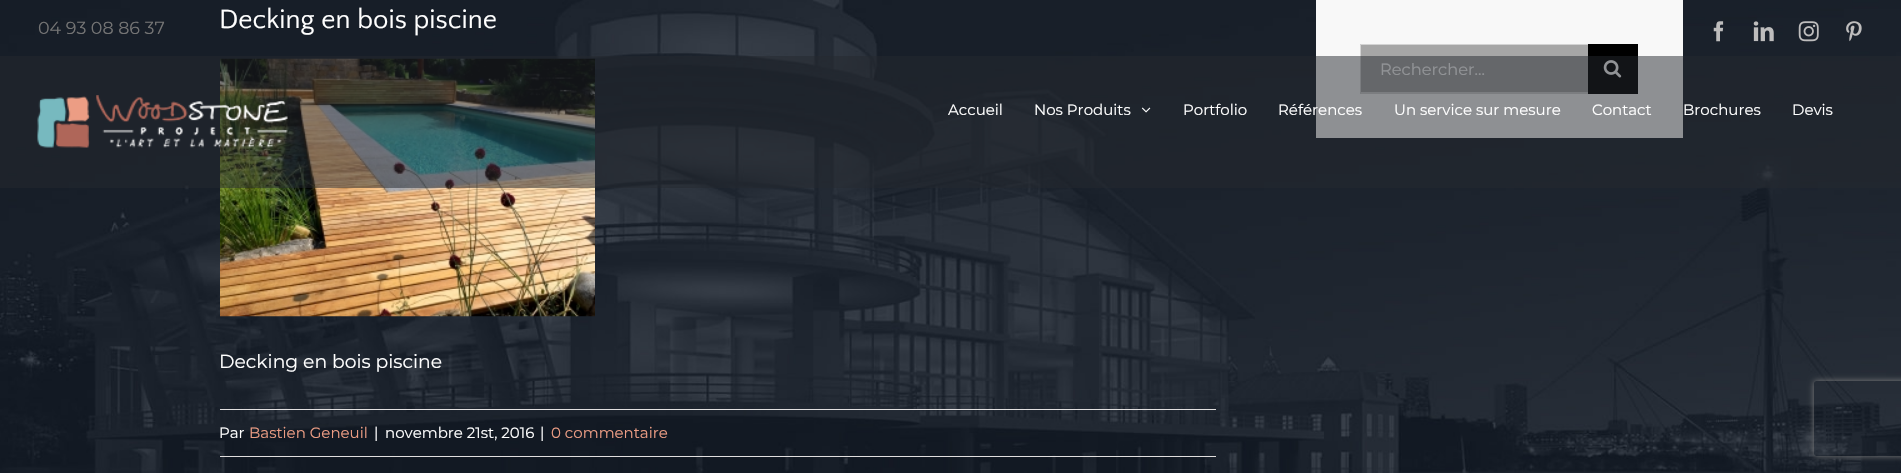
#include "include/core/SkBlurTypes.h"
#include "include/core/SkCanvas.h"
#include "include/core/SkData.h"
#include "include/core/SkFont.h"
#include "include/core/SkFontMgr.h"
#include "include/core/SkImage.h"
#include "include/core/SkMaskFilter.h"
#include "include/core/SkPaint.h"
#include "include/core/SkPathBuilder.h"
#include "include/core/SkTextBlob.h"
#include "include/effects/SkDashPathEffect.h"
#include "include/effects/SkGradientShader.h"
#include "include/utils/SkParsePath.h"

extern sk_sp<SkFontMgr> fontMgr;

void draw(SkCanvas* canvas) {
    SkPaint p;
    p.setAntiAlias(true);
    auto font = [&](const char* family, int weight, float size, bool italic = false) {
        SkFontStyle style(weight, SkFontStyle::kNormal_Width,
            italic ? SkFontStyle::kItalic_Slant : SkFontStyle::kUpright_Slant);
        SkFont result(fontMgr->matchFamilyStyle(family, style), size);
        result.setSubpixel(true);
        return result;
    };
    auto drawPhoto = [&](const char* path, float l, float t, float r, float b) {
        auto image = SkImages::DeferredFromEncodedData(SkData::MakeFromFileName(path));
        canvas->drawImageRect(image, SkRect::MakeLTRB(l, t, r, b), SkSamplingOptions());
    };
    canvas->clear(0xFFFFFFFF);
    drawPhoto("media/1.png", 0, 0, 1901, 473);
    auto font1 = font("Quattrocento Sans", 400, 27.5f);
    p.setColor(0xFFFFFFFF);
    canvas->drawString("Decking en bois piscine", 219, 28, font1, p);
    drawPhoto("media/2.png", 220, 58, 595, 317);
    auto font2 = font("Montserrat", 400, 18.75f);
    canvas->drawString("Decking en bois piscine", 219, 368, font2, p);
    p.setColor(0xFFE0DEDE);
    canvas->drawRect(SkRect::MakeLTRB(220, 409, 1216, 410), p);
    canvas->drawRect(SkRect::MakeLTRB(220, 456, 1216, 457), p);
    auto font3 = font("Montserrat", 400, 15);
    p.setColor(0xFFFFFFFF);
    canvas->drawString("Par", 219, 438, font3, p);
    p.setColor(0xFFEC9D84);
    canvas->drawString("Bastien Geneuil", 249, 438, font3, p);
    p.setColor(0xFFFFFFFF);
    {
        const struct { const char* s; float x, y; } items[] = {
            {"|", 374, 438},
            {"novembre 21st, 2016", 385, 438},
            {"|", 540, 438},
        };
        for (auto [s, x, y] : items) {
            canvas->drawString(s, x, y, font3, p);
        }
    }
    p.setColor(0xFFEC9D84);
    canvas->drawString("0 commentaire", 551, 438, font3, p);
    p.setColor(0xFFF8F8F8);
    canvas->drawRect(SkRect::MakeLTRB(1316, 0, 1683, 138), p);
    p.setColor(0xFFA6A6A6);
    canvas->drawRect(SkRect::MakeLTRB(1360, 44, 1588, 94), p);
    p.setColor(0xFFD3D3D3);
    canvas->drawPath(SkPathBuilder().moveTo(1360, 44).lineTo(1588, 44).lineTo(1588, 45).lineTo(1361, 45).close().detach(), p);
    canvas->drawPath(SkPathBuilder().moveTo(1588, 94).lineTo(1360, 94).lineTo(1361, 92).lineTo(1588, 92).close().detach(), p);
    p.setColor(0x80FFFFFF);
    canvas->drawPath(SkPathBuilder().moveTo(1360, 94).lineTo(1360, 44).lineTo(1361, 45).lineTo(1361, 92).close().detach(), p);
    auto font4 = font("Montserrat", 400, 16.25f);
    p.setColor(0xFFFFFFFF);
    canvas->drawString("Rechercher...", 1380, 75, font4, p);
    p.setColor(0xFF000000);
    canvas->drawRect(SkRect::MakeLTRB(1588, 44, 1638, 94), p);
    drawPhoto("media/3.png", 1603, 60, 1622, 78);
    auto font5 = font("Montserrat", 400, 17.5f);
    p.setColor(0xFF747474);
    canvas->drawString("04 93 08 86 37", 38, 34, font5, p);
    drawPhoto("media/4.png", 1713, 21, 1724, 42);
    drawPhoto("media/5.png", 1753, 21, 1774, 42);
    drawPhoto("media/6.png", 1798, 21, 1819, 42);
    drawPhoto("media/7.png", 1846, 21, 1862, 42);
    p.setColor(0x8024272D);
    canvas->drawRect(SkRect::MakeLTRB(0, 56, 1901, 188), p);
    drawPhoto("media/8.png", 37, 95, 288, 148);
    p.setColor(0xFFFFFFFF);
    canvas->drawString("Accueil", 948, 115, font3, p);
    canvas->drawString("Nos Produits", 1034, 115, font3, p);
    drawPhoto("media/9.png", 1141, 107, 1151, 113);
    {
        const struct { const char* s; float x, y; } items[] = {
            {"Portfolio", 1183, 115},
            {"Références", 1278, 115},
            {"Un service sur mesure", 1394, 115},
            {"Contact", 1592, 115},
            {"Brochures", 1683, 115},
            {"Devis", 1792, 115},
        };
        for (auto [s, x, y] : items) {
            canvas->drawString(s, x, y, font3, p);
        }
    }
    canvas->save();
    canvas->clipPath(SkPathBuilder(SkPathFillType::kEvenOdd).moveTo(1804, 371).lineTo(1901, 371).lineTo(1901, 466).lineTo(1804, 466).close().moveTo(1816.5f, 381).lineTo(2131.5f, 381).cubicTo(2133, 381, 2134, 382, 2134, 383.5f).lineTo(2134, 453.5f).cubicTo(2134, 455, 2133, 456, 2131.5f, 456).lineTo(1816.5f, 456).cubicTo(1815, 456, 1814, 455, 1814, 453.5f).lineTo(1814, 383.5f).cubicTo(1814, 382, 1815, 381, 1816.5f, 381).close().detach(), true);
    p.setColor(0xFF808080);
    p.setMaskFilter(SkMaskFilter::MakeBlur(kNormal_SkBlurStyle, 3));
    canvas->drawRoundRect(SkRect::MakeLTRB(1814, 381, 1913, 456), 2.5f, 2.5f, p);
    p.setMaskFilter(nullptr);
    canvas->restore();
}
